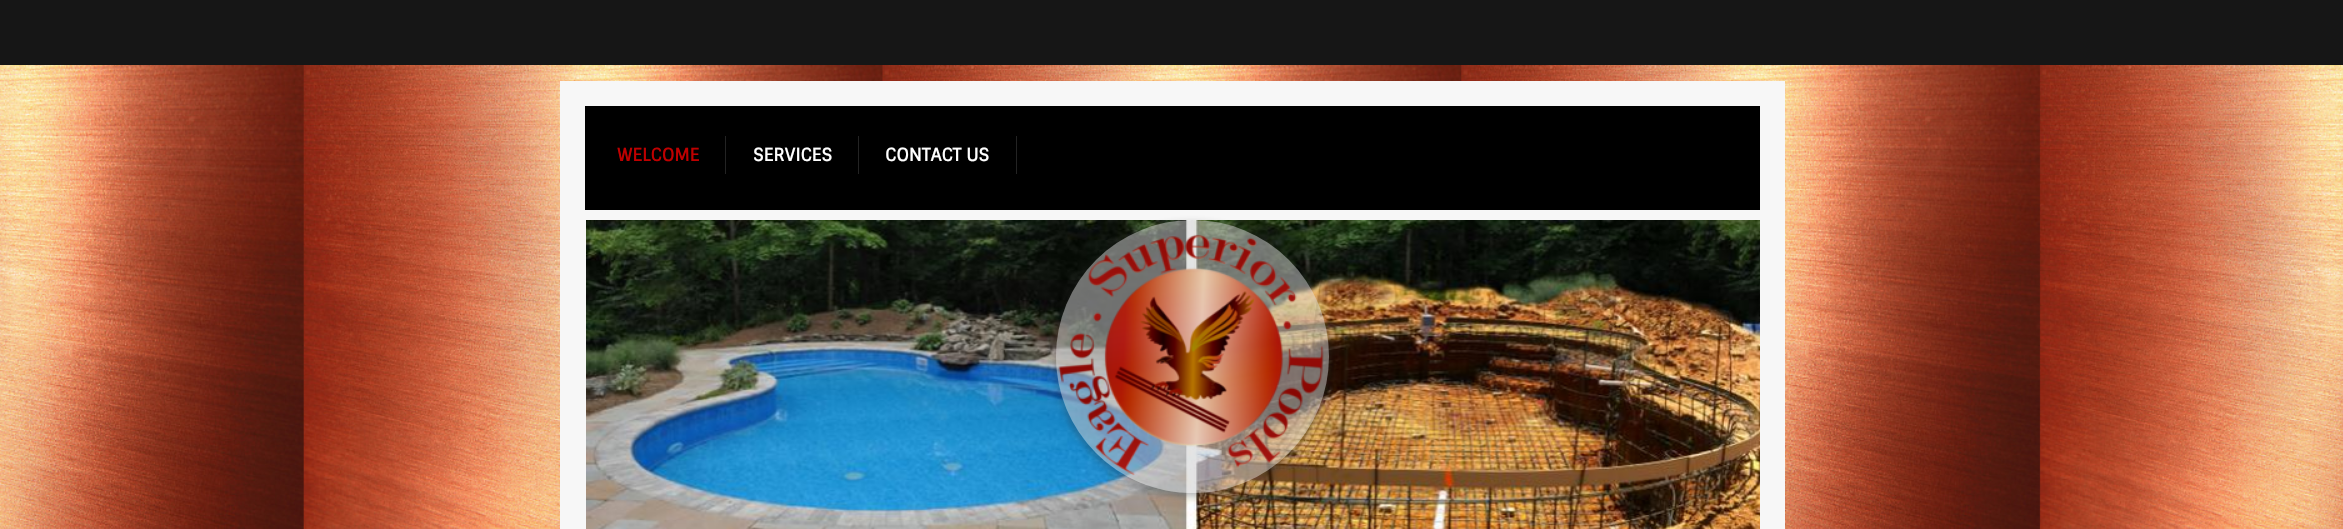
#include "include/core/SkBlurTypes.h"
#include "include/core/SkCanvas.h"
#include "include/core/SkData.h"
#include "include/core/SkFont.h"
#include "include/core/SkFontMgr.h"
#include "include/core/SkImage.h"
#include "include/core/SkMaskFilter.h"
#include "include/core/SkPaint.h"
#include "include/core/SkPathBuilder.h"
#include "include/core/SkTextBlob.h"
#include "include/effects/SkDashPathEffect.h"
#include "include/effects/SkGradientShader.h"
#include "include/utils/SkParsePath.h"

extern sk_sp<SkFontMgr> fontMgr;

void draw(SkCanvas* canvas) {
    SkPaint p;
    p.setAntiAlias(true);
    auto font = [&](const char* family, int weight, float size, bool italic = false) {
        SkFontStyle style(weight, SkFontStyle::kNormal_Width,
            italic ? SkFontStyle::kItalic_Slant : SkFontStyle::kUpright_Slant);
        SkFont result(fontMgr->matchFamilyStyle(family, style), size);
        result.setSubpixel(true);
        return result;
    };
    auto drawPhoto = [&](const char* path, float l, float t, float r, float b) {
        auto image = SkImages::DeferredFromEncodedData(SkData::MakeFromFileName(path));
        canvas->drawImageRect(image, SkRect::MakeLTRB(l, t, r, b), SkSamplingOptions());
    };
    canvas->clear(0xFF161616);
    drawPhoto("media/1.png", 0, 65, 2343, 529);
    {
        const struct { float l, t, r, b; SkColor color; } items[] = {
            {560, 81, 1785, 529, 0xFFF7F7F7},
            {585, 106, 1760, 210, 0xFF000000},
            {725, 136, 726, 174, 0xFF232323},
        };
        for (auto [l, t, r, b, color] : items) {
            p.setColor(color);
            canvas->drawRect(SkRect::MakeLTRB(l, t, r, b), p);
        }
    }
    auto font1 = font("Sintony", 700, 17.5f);
    p.setColor(0xFFBF0000);
    canvas->drawString("WELCOME", 617, 161, font1, p);
    p.setColor(0xFF232323);
    canvas->drawRect(SkRect::MakeLTRB(858, 136, 859, 174), p);
    p.setColor(0xFFFFFFFF);
    canvas->drawString("SERVICES", 753, 161, font1, p);
    p.setColor(0xFF232323);
    canvas->drawRect(SkRect::MakeLTRB(1016, 136, 1017, 174), p);
    p.setColor(0xFFFFFFFF);
    canvas->drawString("CONTACT US", 885, 161, font1, p);
    drawPhoto("media/2.png", 586, 220, 1760, 529);
    canvas->save();
    canvas->clipPath(SkPathBuilder(SkPathFillType::kEvenOdd).moveTo(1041, 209).lineTo(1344, 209).lineTo(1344, 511).lineTo(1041, 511).close().moveTo(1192.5f, 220).cubicTo(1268, 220, 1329, 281, 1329, 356.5f).cubicTo(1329, 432, 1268, 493, 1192.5f, 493).cubicTo(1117, 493, 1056, 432, 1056, 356.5f).cubicTo(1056, 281, 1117, 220, 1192.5f, 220).close().detach(), true);
    p.setColor(0x66323232);
    p.setMaskFilter(SkMaskFilter::MakeBlur(kNormal_SkBlurStyle, 4.5f));
    canvas->drawRoundRect(SkRect::MakeLTRB(1056, 224, 1329, 496), 136, 136, p);
    p.setMaskFilter(nullptr);
    canvas->restore();
    p.setColor(0x87CCCCCC);
    canvas->drawCircle(1192.5f, 356.5f, 136.5f, p);
    drawPhoto("media/3.png", 1058, 234, 1324, 476);
}
